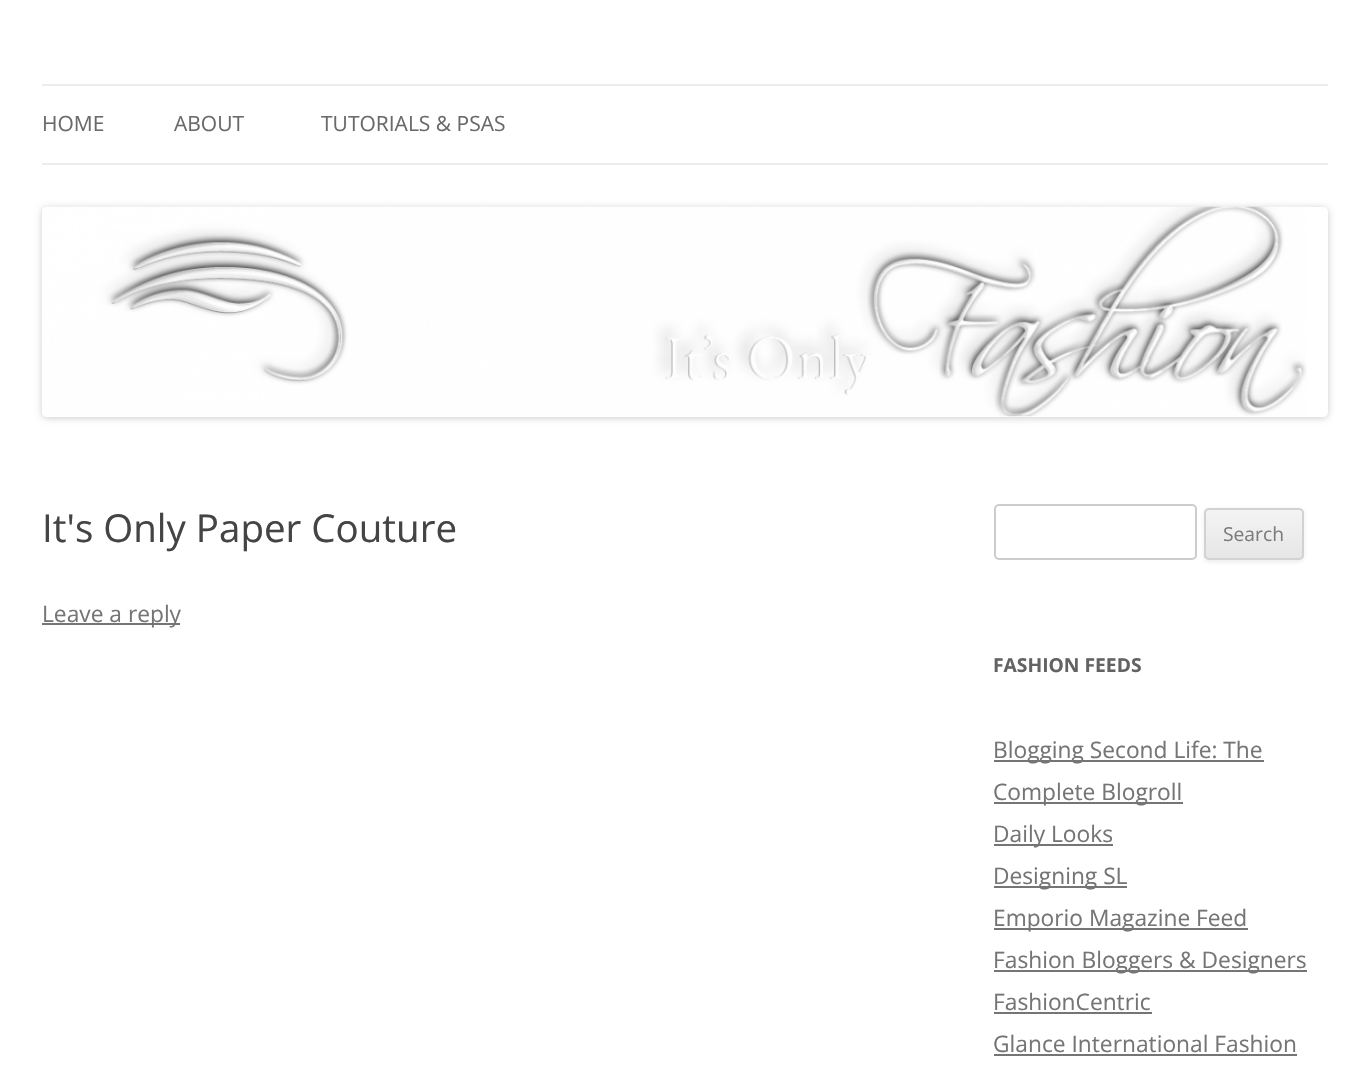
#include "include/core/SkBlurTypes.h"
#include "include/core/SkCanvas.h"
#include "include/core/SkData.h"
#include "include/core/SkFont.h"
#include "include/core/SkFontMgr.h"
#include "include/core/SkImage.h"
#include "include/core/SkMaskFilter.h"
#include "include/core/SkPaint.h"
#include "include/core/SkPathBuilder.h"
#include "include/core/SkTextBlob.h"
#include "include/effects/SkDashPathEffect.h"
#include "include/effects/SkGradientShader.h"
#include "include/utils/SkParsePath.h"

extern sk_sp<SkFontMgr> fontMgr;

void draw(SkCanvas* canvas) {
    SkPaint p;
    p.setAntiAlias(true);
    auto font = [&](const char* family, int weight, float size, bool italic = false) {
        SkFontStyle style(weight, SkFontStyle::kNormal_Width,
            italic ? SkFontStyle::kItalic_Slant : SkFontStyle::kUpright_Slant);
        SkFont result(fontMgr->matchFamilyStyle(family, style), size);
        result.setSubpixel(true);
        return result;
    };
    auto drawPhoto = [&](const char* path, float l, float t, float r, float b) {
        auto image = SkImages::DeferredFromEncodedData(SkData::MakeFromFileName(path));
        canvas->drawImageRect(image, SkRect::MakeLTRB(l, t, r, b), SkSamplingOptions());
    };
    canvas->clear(0xFFFFFFFF);
    p.setColor(0xFFEDEDED);
    canvas->drawRect(SkRect::MakeLTRB(42, 84, 1328, 86), p);
    canvas->drawRect(SkRect::MakeLTRB(42, 163, 1328, 165), p);
    auto font1 = font("Open Sans", 400, 21);
    p.setColor(0xFF6A6A6A);
    {
        const struct { const char* s; float x, y; } items[] = {
            {"HOME", 42, 131},
            {"ABOUT", 174, 131},
            {"TUTORIALS & PSAS", 321, 131},
        };
        for (auto [s, x, y] : items) {
            canvas->drawString(s, x, y, font1, p);
        }
    }
    canvas->save();
    canvas->clipPath(SkPathBuilder(SkPathFillType::kEvenOdd).moveTo(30, 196).lineTo(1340, 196).lineTo(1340, 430).lineTo(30, 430).close().moveTo(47, 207).lineTo(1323, 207).cubicTo(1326, 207, 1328, 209, 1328, 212).lineTo(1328, 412).cubicTo(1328, 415, 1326, 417, 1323, 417).lineTo(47, 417).cubicTo(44, 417, 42, 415, 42, 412).lineTo(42, 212).cubicTo(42, 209, 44, 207, 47, 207).close().detach(), true);
    p.setColor(0x33000000);
    p.setMaskFilter(SkMaskFilter::MakeBlur(kNormal_SkBlurStyle, 3.5f));
    canvas->drawRoundRect(SkRect::MakeLTRB(42, 208, 1328, 418), 5, 5, p);
    p.setMaskFilter(nullptr);
    canvas->restore();
    drawPhoto("media/1.png", 42, 206, 1307, 417);
    auto font2 = font("Open Sans", 400, 38.5f);
    p.setColor(0xFF444444);
    canvas->drawString("It's Only Paper Couture", 42, 542, font2, p);
    p.setColor(0xFF757575);
    canvas->drawRect(SkRect::MakeLTRB(42, 623, 180, 625), p);
    auto font3 = font("Open Sans", 400, 22.75f);
    canvas->drawString("Leave a reply", 42, 622, font3, p);
    p.setStyle(SkPaint::kStroke_Style);
    p.setStrokeWidth(2);
    p.setColor(0xFFCCCCCC);
    canvas->drawRoundRect(SkRect::MakeLTRB(995, 505, 1196, 559), 4, 4, p);
    p.setStyle(SkPaint::kFill_Style);
    p.setColor(0x1A404040);
    p.setMaskFilter(SkMaskFilter::MakeBlur(kNormal_SkBlurStyle, 2));
    canvas->drawRoundRect(SkRect::MakeLTRB(1204, 509, 1304, 562), 5, 5, p);
    p.setMaskFilter(nullptr);
    canvas->save();
    canvas->clipPath(SkPathBuilder().moveTo(1209, 508).lineTo(1299, 508).cubicTo(1302, 508, 1304, 510, 1304, 513).lineTo(1304, 555).cubicTo(1304, 558, 1302, 560, 1299, 560).lineTo(1209, 560).cubicTo(1206, 560, 1204, 558, 1204, 555).lineTo(1204, 513).cubicTo(1204, 510, 1206, 508, 1209, 508).close().detach(), true);
    {
        const SkColor colors[] = {0xFFF4F4F4, 0xFFE6E6E6};
        const float stops[] = {0, 1};
        const SkPoint ends[] = {{1254, 509}, {1254, 558}};
        p.setShader(SkGradientShader::MakeLinear(ends, colors, stops, 2, SkTileMode::kClamp));
        p.setAlpha(255);
    }
    canvas->drawRect(SkRect::MakeLTRB(1204, 509, 1304, 558), p);
    canvas->restore();
    p.setStyle(SkPaint::kStroke_Style);
    p.setShader(nullptr);
    p.setColor(0xFFD2D2D2);
    canvas->drawRoundRect(SkRect::MakeLTRB(1205, 509, 1303, 559), 4, 4, p);
    auto font4 = font("Open Sans", 400, 19.25f);
    p.setStyle(SkPaint::kFill_Style);
    p.setColor(0xFF7C7C7C);
    canvas->drawString("Search", 1223, 541, font4, p);
    auto font5 = font("Open Sans", 700, 19.25f);
    p.setColor(0xFF636363);
    canvas->drawString("FASHION FEEDS", 993, 672, font5, p);
    p.setColor(0xFF757575);
    canvas->drawRect(SkRect::MakeLTRB(994, 760, 1264, 762), p);
    canvas->drawString("Blogging Second Life: The", 993, 758, font3, p);
    canvas->drawRect(SkRect::MakeLTRB(994, 802, 1183, 804), p);
    canvas->drawString("Complete Blogroll", 993, 800, font3, p);
    canvas->drawRect(SkRect::MakeLTRB(994, 844, 1113, 846), p);
    canvas->drawString("Daily Looks", 993, 842, font3, p);
    canvas->drawRect(SkRect::MakeLTRB(994, 886, 1127, 888), p);
    canvas->drawString("Designing SL", 993, 884, font3, p);
    canvas->drawRect(SkRect::MakeLTRB(994, 928, 1248, 930), p);
    canvas->drawString("Emporio Magazine Feed", 993, 926, font3, p);
    canvas->drawRect(SkRect::MakeLTRB(994, 970, 1307, 972), p);
    canvas->drawString("Fashion Bloggers & Designers", 993, 968, font3, p);
    canvas->drawString("FashionCentric", 993, 1010, font3, p);
    canvas->drawRect(SkRect::MakeLTRB(994, 1012, 1152, 1014), p);
    canvas->drawString("Glance International Fashion", 993, 1052, font3, p);
    canvas->drawRect(SkRect::MakeLTRB(994, 1054, 1297, 1056), p);
}
